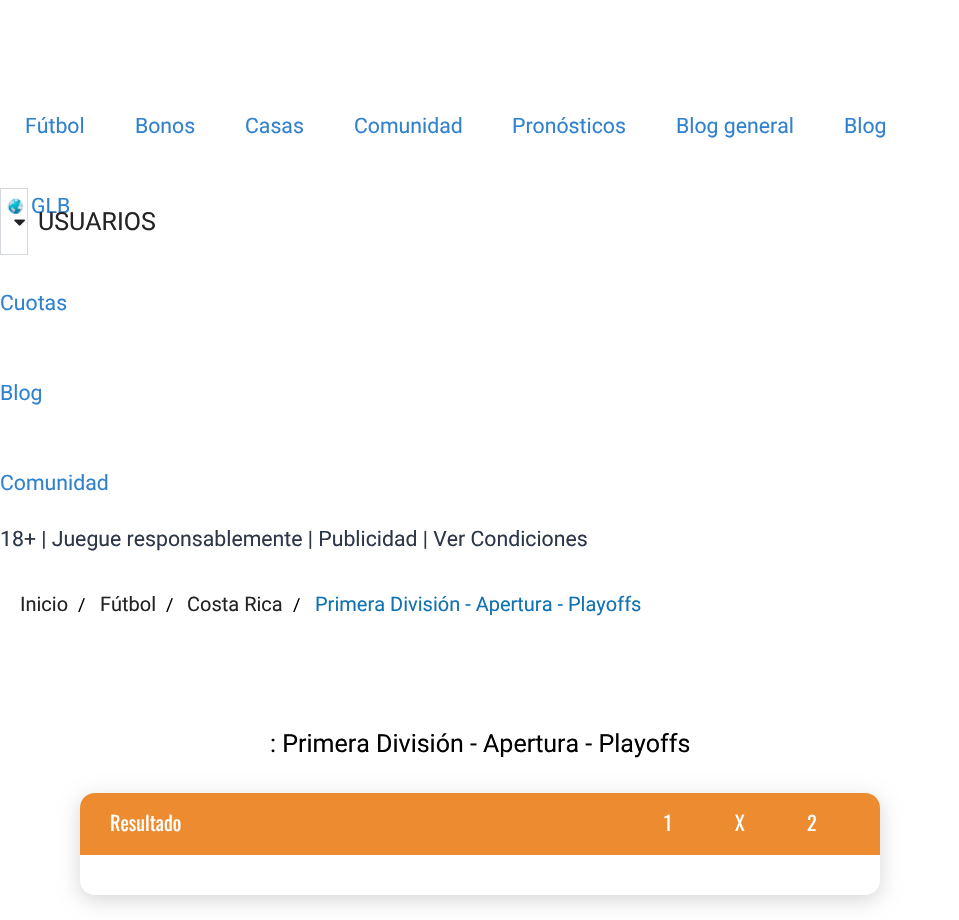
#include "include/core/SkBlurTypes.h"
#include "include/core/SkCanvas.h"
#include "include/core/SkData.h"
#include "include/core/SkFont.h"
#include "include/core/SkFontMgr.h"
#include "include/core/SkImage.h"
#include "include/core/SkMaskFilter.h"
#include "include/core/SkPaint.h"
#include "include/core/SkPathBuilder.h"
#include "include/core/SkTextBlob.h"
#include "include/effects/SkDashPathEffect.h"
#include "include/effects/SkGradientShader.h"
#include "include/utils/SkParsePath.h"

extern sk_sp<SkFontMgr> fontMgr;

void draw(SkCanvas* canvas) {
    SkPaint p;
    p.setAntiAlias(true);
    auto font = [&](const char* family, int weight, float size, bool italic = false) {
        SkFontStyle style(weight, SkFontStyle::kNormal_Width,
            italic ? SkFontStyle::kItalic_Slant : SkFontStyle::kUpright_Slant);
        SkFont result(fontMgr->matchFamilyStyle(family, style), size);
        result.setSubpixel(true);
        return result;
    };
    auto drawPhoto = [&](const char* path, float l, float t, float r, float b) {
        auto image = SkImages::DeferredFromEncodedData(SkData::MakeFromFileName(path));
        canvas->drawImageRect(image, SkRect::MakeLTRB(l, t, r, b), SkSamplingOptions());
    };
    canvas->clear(0xFFFFFFFF);
    auto font1 = font("Roboto", 400, 21.25f);
    p.setColor(0xFF3182CE);
    {
        const struct { const char* s; float x, y; } items[] = {
            {"Fútbol", 25, 133},
            {"Bonos", 135, 133},
            {"Casas", 245, 133},
            {"Comunidad", 354, 133},
            {"Pronósticos", 512, 133},
            {"Blog general", 676, 133},
            {"Blog", 844, 133},
        };
        for (auto [s, x, y] : items) {
            canvas->drawString(s, x, y, font1, p);
        }
    }
    drawPhoto("media/1.png", 7, 198, 24, 214);
    canvas->drawString("GLB", 31, 213, font1, p);
    p.setStyle(SkPaint::kStroke_Style);
    p.setStrokeWidth(1);
    p.setColor(0xFFD5D8DC);
    canvas->drawRect(SkRect::MakeLTRB(0.5f, 188.5f, 27.5f, 254.5f), p);
    drawPhoto("media/2.png", 14, 219, 25, 226);
    auto font2 = font("Roboto", 400, 25);
    p.setStyle(SkPaint::kFill_Style);
    p.setColor(0xFF242424);
    canvas->drawString("USUARIOS", 38, 230, font2, p);
    p.setColor(0xFF3182CE);
    {
        const struct { const char* s; float x, y; } items[] = {
            {"Cuotas", 0, 310},
            {"Blog", 0, 400},
            {"Comunidad", 0, 490},
        };
        for (auto [s, x, y] : items) {
            canvas->drawString(s, x, y, font1, p);
        }
    }
    p.setColor(0xFF2D3748);
    canvas->drawString("18+ | Juegue responsablemente | Publicidad | Ver Condiciones", 0, 546, font1, p);
    auto font3 = font("Roboto", 400, 20);
    p.setColor(0xFF242424);
    canvas->drawString("Inicio", 20, 611, font3, p);
    auto font4 = font("Roboto", 400, 18);
    p.setColor(0xFF000000);
    canvas->drawString("/", 78, 611, font4, p);
    p.setColor(0xFF242424);
    canvas->drawString("Fútbol", 100, 611, font3, p);
    p.setColor(0xFF000000);
    canvas->drawString("/", 166, 611, font4, p);
    p.setColor(0xFF242424);
    canvas->drawString("Costa Rica", 187, 611, font3, p);
    p.setColor(0xFF000000);
    canvas->drawString("/", 293, 611, font4, p);
    p.setColor(0xFF1072B2);
    canvas->drawString("Primera División - Apertura - Playoffs", 315, 611, font3, p);
    p.setColor(0xFF000000);
    canvas->drawString(": Primera División - Apertura - Playoffs", 270, 752, font2, p);
    canvas->save();
    canvas->clipPath(SkPathBuilder(SkPathFillType::kEvenOdd).moveTo(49, 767).lineTo(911, 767).lineTo(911, 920).lineTo(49, 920).close().moveTo(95, 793).lineTo(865, 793).cubicTo(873.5f, 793, 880, 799.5f, 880, 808).lineTo(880, 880).cubicTo(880, 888.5f, 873.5f, 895, 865, 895).lineTo(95, 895).cubicTo(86.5f, 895, 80, 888.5f, 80, 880).lineTo(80, 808).cubicTo(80, 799.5f, 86.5f, 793, 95, 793).close().detach(), true);
    p.setColor(0x29000000);
    p.setMaskFilter(SkMaskFilter::MakeBlur(kNormal_SkBlurStyle, 10));
    canvas->drawRoundRect(SkRect::MakeLTRB(80, 798, 880, 900), 15, 15, p);
    p.setMaskFilter(nullptr);
    canvas->restore();
    p.setColor(0xFFED8B30);
    canvas->drawPath(SkPathBuilder().moveTo(95, 793).lineTo(865, 793).cubicTo(873.5f, 793, 880, 799.5f, 880, 808).lineTo(880, 855).lineTo(80, 855).lineTo(80, 808).cubicTo(80, 799.5f, 86.5f, 793, 95, 793).close().detach(), p);
    auto font5 = font("Oswald", 400, 20);
    p.setColor(0xFFFFFFFF);
    {
        const struct { const char* s; float x, y; } items[] = {
            {"Resultado", 110, 831},
            {"1", 664, 831},
            {"X", 735, 831},
            {"2", 807, 831},
        };
        for (auto [s, x, y] : items) {
            canvas->drawString(s, x, y, font5, p);
        }
    }
}
